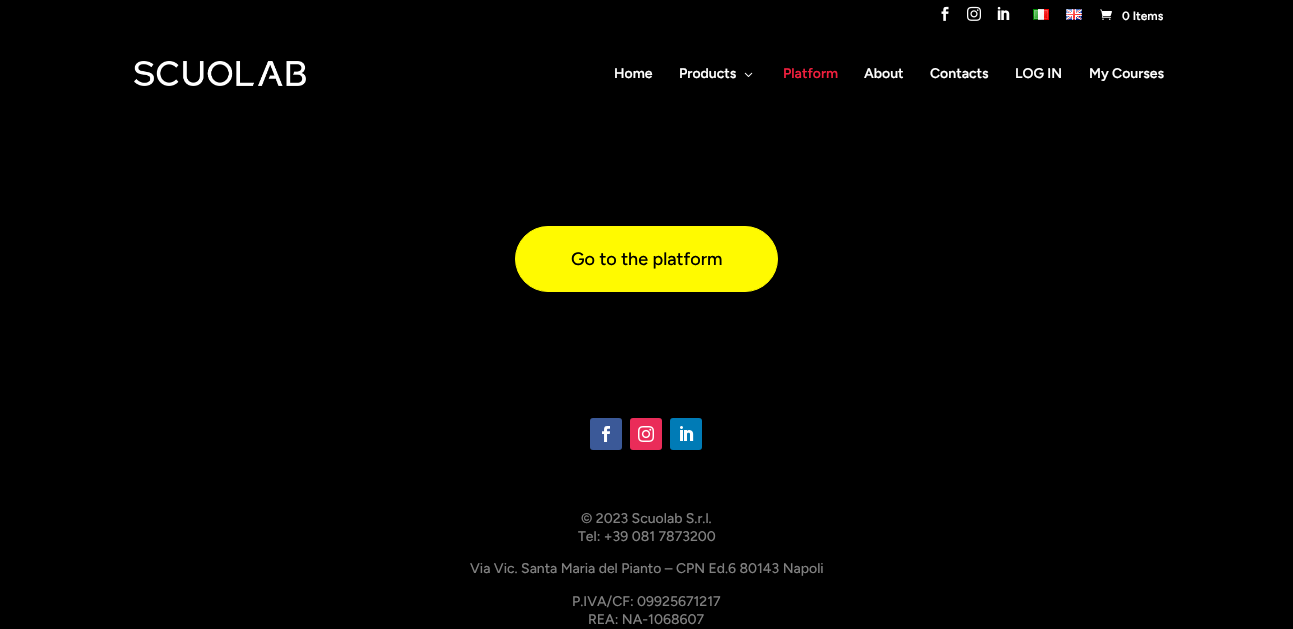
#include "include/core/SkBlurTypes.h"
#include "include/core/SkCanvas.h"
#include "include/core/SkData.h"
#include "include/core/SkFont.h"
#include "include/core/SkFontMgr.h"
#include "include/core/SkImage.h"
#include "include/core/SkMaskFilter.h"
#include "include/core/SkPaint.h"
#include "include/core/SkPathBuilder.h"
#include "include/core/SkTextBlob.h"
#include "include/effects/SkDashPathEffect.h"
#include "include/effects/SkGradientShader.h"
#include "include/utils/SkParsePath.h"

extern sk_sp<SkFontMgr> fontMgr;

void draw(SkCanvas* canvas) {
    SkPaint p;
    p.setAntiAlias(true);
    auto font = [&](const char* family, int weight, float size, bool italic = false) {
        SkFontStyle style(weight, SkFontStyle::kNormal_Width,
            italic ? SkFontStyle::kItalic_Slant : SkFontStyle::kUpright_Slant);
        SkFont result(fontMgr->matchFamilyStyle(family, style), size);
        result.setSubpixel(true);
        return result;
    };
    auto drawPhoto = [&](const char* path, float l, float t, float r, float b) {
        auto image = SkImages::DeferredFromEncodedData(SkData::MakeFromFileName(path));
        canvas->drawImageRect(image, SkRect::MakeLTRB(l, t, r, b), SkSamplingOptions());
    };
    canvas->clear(0xFF000000);
    drawPhoto("media/1.png", 941, 6, 949, 21);
    drawPhoto("media/2.png", 967, 6, 981, 21);
    drawPhoto("media/3.png", 997, 6, 1010, 20);
    drawPhoto("media/4.png", 1033, 9, 1049, 20);
    drawPhoto("media/5.png", 1066, 9, 1082, 20);
    drawPhoto("media/6.png", 1100, 9, 1112, 20);
    auto font1 = font("Figtree", 600, 12);
    p.setColor(0xFFFFFFFF);
    canvas->drawString("0 Items", 1122, 20, font1, p);
    drawPhoto("media/7.png", 134, 61, 306, 86);
    auto font2 = font("Figtree", 600, 14);
    canvas->drawString("Home", 614, 78, font2, p);
    canvas->drawString("Products", 679, 78, font2, p);
    drawPhoto("media/8.png", 744, 72, 753, 77);
    p.setColor(0xFFF01F3D);
    canvas->drawString("Platform", 783, 78, font2, p);
    p.setColor(0xFFFFFFFF);
    {
        const struct { const char* s; float x, y; } items[] = {
            {"About", 864, 78},
            {"Contacts", 930, 78},
            {"LOG IN", 1015, 78},
            {"My Courses", 1089, 78},
        };
        for (auto [s, x, y] : items) {
            canvas->drawString(s, x, y, font2, p);
        }
    }
    p.setColor(0xFFFFFA00);
    canvas->drawRoundRect(SkRect::MakeLTRB(515.5f, 226.5f, 777.5f, 291.5f), 32.5f, 32.5f, p);
    p.setStyle(SkPaint::kStroke_Style);
    p.setStrokeWidth(1);
    canvas->drawRoundRect(SkRect::MakeLTRB(515.5f, 226.5f, 777.5f, 291.5f), 32.5f, 32.5f, p);
    auto font3 = font("Figtree", 500, 18);
    p.setStyle(SkPaint::kFill_Style);
    p.setColor(0xFF000000);
    canvas->drawString("Go to the platform", 571, 265, font3, p);
    p.setColor(0xFF3B5998);
    canvas->drawRoundRect(SkRect::MakeLTRB(590, 418, 622, 450), 3, 3, p);
    drawPhoto("media/9.png", 602, 426, 610, 442);
    p.setColor(0xFFEA2C59);
    canvas->drawRoundRect(SkRect::MakeLTRB(630, 418, 662, 450), 3, 3, p);
    drawPhoto("media/10.png", 638, 426, 654, 442);
    p.setColor(0xFF007BB6);
    canvas->drawRoundRect(SkRect::MakeLTRB(670, 418, 702, 450), 3, 3, p);
    drawPhoto("media/11.png", 680, 426, 694, 441);
    auto font4 = font("Figtree", 500, 14);
    p.setColor(0xFF808080);
    {
        const struct { const char* s; float x, y; } items[] = {
            {"© 2023 Scuolab S.r.l.", 581, 523},
            {"Tel: +39 081 7873200", 578, 541},
            {"Via Vic. Santa Maria del Pianto – CPN Ed.6 80143 Napoli", 470, 573},
            {"P.IVA/CF: 09925671217", 572, 606},
            {"REA: NA-1068607", 588, 624},
        };
        for (auto [s, x, y] : items) {
            canvas->drawString(s, x, y, font4, p);
        }
    }
}
